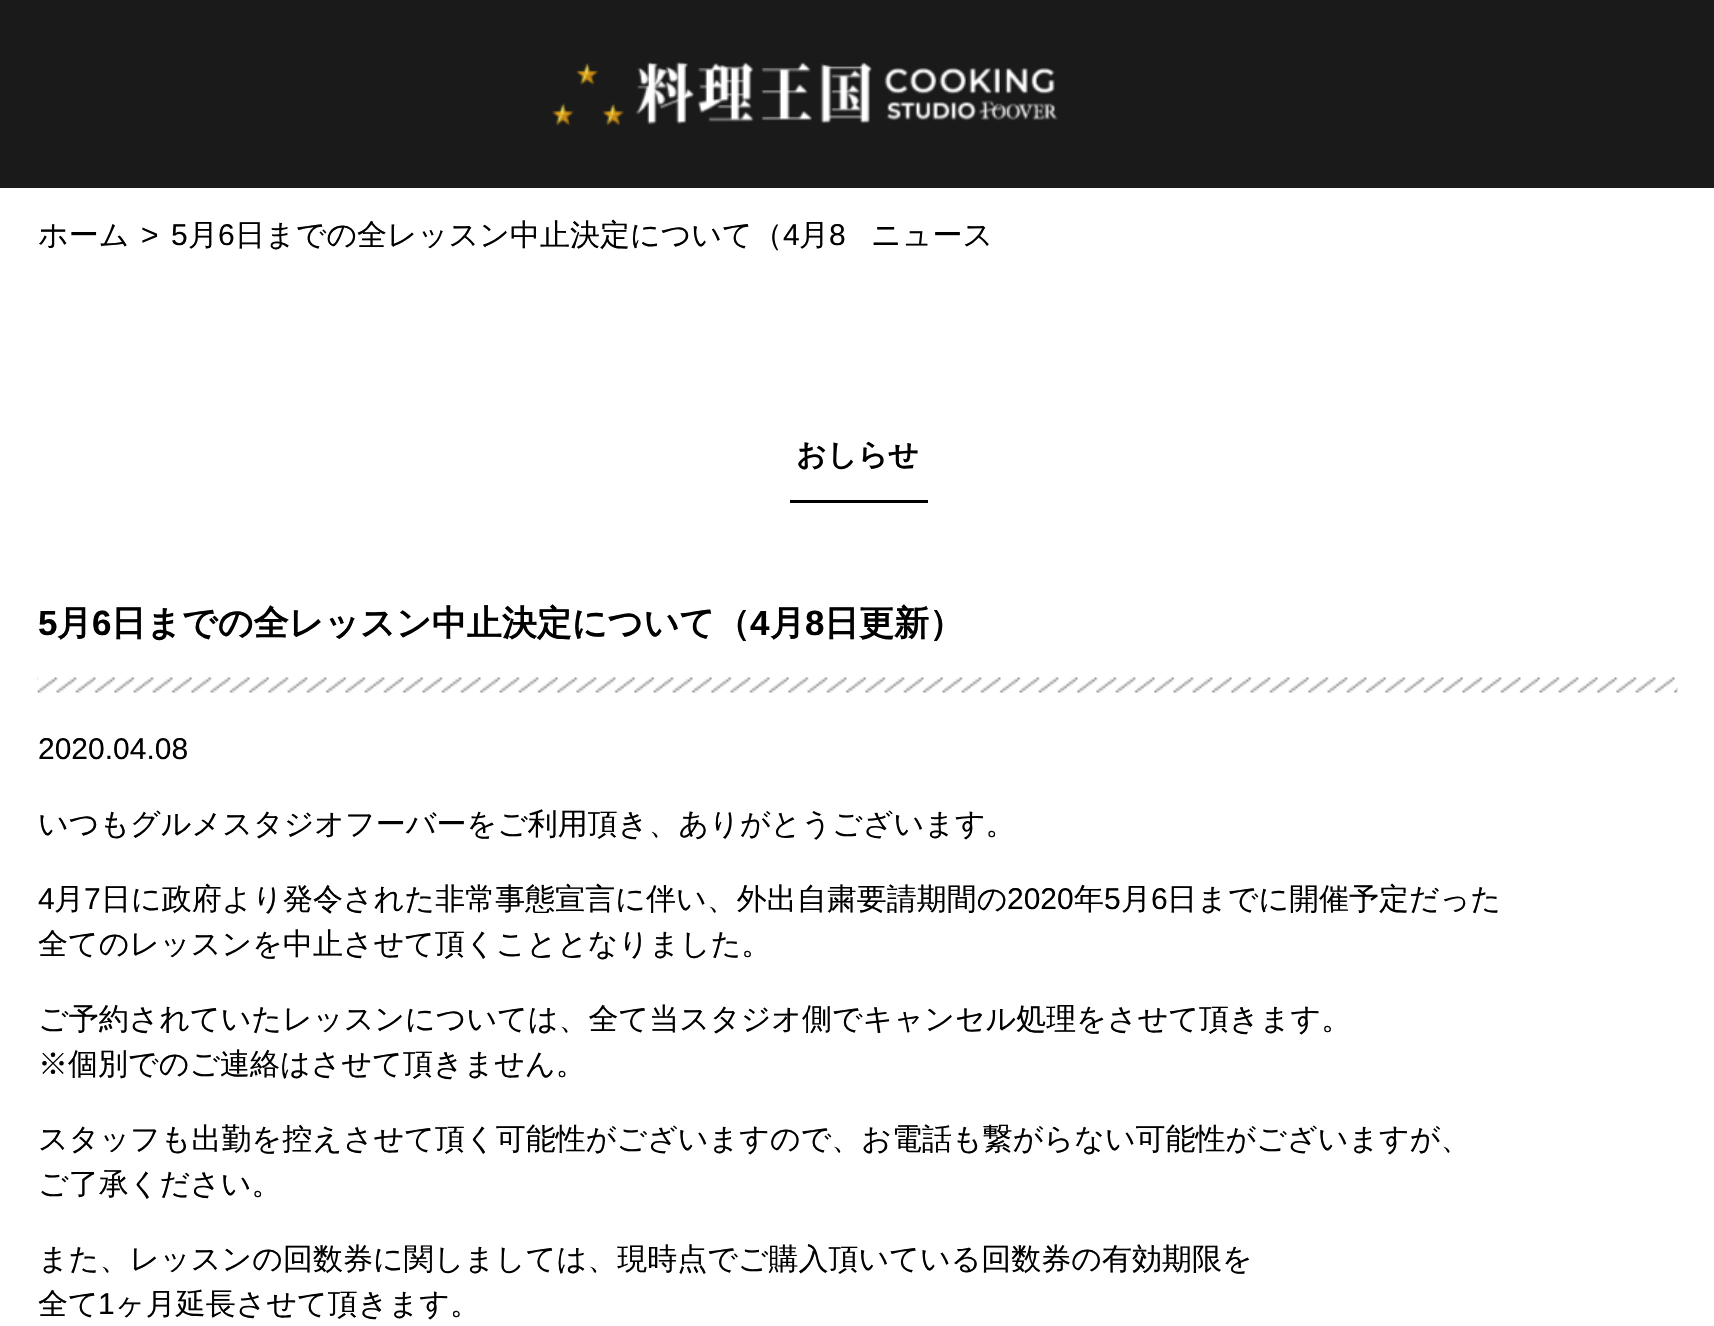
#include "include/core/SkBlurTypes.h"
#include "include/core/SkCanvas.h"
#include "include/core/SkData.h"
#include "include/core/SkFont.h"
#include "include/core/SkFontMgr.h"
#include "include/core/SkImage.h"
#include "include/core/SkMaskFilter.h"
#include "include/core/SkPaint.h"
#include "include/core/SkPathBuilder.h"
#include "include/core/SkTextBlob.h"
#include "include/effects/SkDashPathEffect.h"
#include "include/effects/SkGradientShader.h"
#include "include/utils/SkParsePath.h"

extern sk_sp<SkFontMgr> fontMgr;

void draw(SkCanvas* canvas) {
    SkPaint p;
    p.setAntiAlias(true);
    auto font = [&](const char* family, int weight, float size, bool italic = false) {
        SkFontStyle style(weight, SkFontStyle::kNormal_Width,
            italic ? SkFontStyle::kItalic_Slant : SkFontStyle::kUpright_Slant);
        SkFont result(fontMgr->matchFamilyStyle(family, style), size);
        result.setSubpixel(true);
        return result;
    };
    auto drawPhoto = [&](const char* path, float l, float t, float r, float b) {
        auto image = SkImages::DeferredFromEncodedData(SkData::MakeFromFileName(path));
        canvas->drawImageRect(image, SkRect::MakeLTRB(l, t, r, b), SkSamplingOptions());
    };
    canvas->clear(0xFFFFFFFF);
    p.setColor(0xFF1A1A1A);
    canvas->drawRect(SkRect::MakeLTRB(0, 0, 1714, 188), p);
    drawPhoto("media/1.png", 552, 62, 1058, 126);
    auto font1 = font("WenQuanYi Zen Hei", 500, 30);
    p.setColor(0xFF000000);
    canvas->drawString("ホーム", 38, 245, font1, p);
    auto font2 = font("Liberation Sans", 400, 30);
    canvas->drawString(">", 141, 245, font2, p);
    canvas->drawString("5", 171, 245, font2, p);
    canvas->drawString("月", 188, 245, font1, p);
    canvas->drawString("6", 218, 245, font2, p);
    canvas->drawString("日までの全レッスン中止決定について（", 235, 245, font1, p);
    canvas->drawString("4", 783, 245, font2, p);
    canvas->drawString("月", 799, 245, font1, p);
    canvas->drawString("8", 829, 245, font2, p);
    canvas->drawString("ニュース", 871, 245, font1, p);
    auto font3 = font("WenQuanYi Zen Hei", 700, 30);
    canvas->drawString("おしらせ", 796, 465, font3, p);
    canvas->drawRect(SkRect::MakeLTRB(790, 500, 928, 503), p);
    auto font4 = font("Liberation Sans", 700, 35);
    canvas->drawString("5", 38, 635, font4, p);
    auto font5 = font("WenQuanYi Zen Hei", 700, 35);
    canvas->drawString("月", 57, 635, font5, p);
    canvas->drawString("6", 92, 635, font4, p);
    canvas->drawString("日までの全レッスン中止決定について（", 111, 635, font5, p);
    canvas->drawString("4", 750, 635, font4, p);
    canvas->drawString("月", 770, 635, font5, p);
    canvas->drawString("8", 805, 635, font4, p);
    canvas->drawString("日更新）", 824, 635, font5, p);
    drawPhoto("media/2.png", 37, 677, 1678, 693);
    canvas->drawString("2020.04.08", 38, 759, font2, p);
    canvas->drawString("いつもグルメスタジオフーバーをご利用頂き、ありがとうございます。", 38, 834, font1, p);
    canvas->drawString("4", 38, 909, font2, p);
    canvas->drawString("月", 54, 909, font1, p);
    canvas->drawString("7", 84, 909, font2, p);
    canvas->drawString("日に政府より発令された非常事態宣言に伴い、外出自粛要請期間の", 101, 909, font1, p);
    canvas->drawString("2020", 1007, 909, font2, p);
    canvas->drawString("年", 1074, 909, font1, p);
    canvas->drawString("5", 1104, 909, font2, p);
    canvas->drawString("月", 1121, 909, font1, p);
    canvas->drawString("6", 1151, 909, font2, p);
    {
        const struct { const char* s; float x, y; } items[] = {
            {"日までに開催予定だった", 1167, 909},
            {"全てのレッスンを中止させて頂くこととなりました。", 38, 954},
            {"ご予約されていたレッスンについては、全て当スタジオ側でキャンセル処理をさせて頂きます。", 38, 1029},
            {"※個別でのご連絡はさせて頂きません。", 38, 1074},
            {"スタッフも出勤を控えさせて頂く可能性がございますので、お電話も繋がらない可能性がございますが、", 38, 1149},
            {"ご了承ください。", 38, 1194},
            {"また、レッスンの回数券に関しましては、現時点でご購入頂いている回数券の有効期限を", 38, 1269},
            {"全て", 38, 1314},
        };
        for (auto [s, x, y] : items) {
            canvas->drawString(s, x, y, font1, p);
        }
    }
    canvas->drawString("1", 98, 1314, font2, p);
    canvas->drawString("ヶ月延長させて頂きます。", 115, 1314, font1, p);
}
